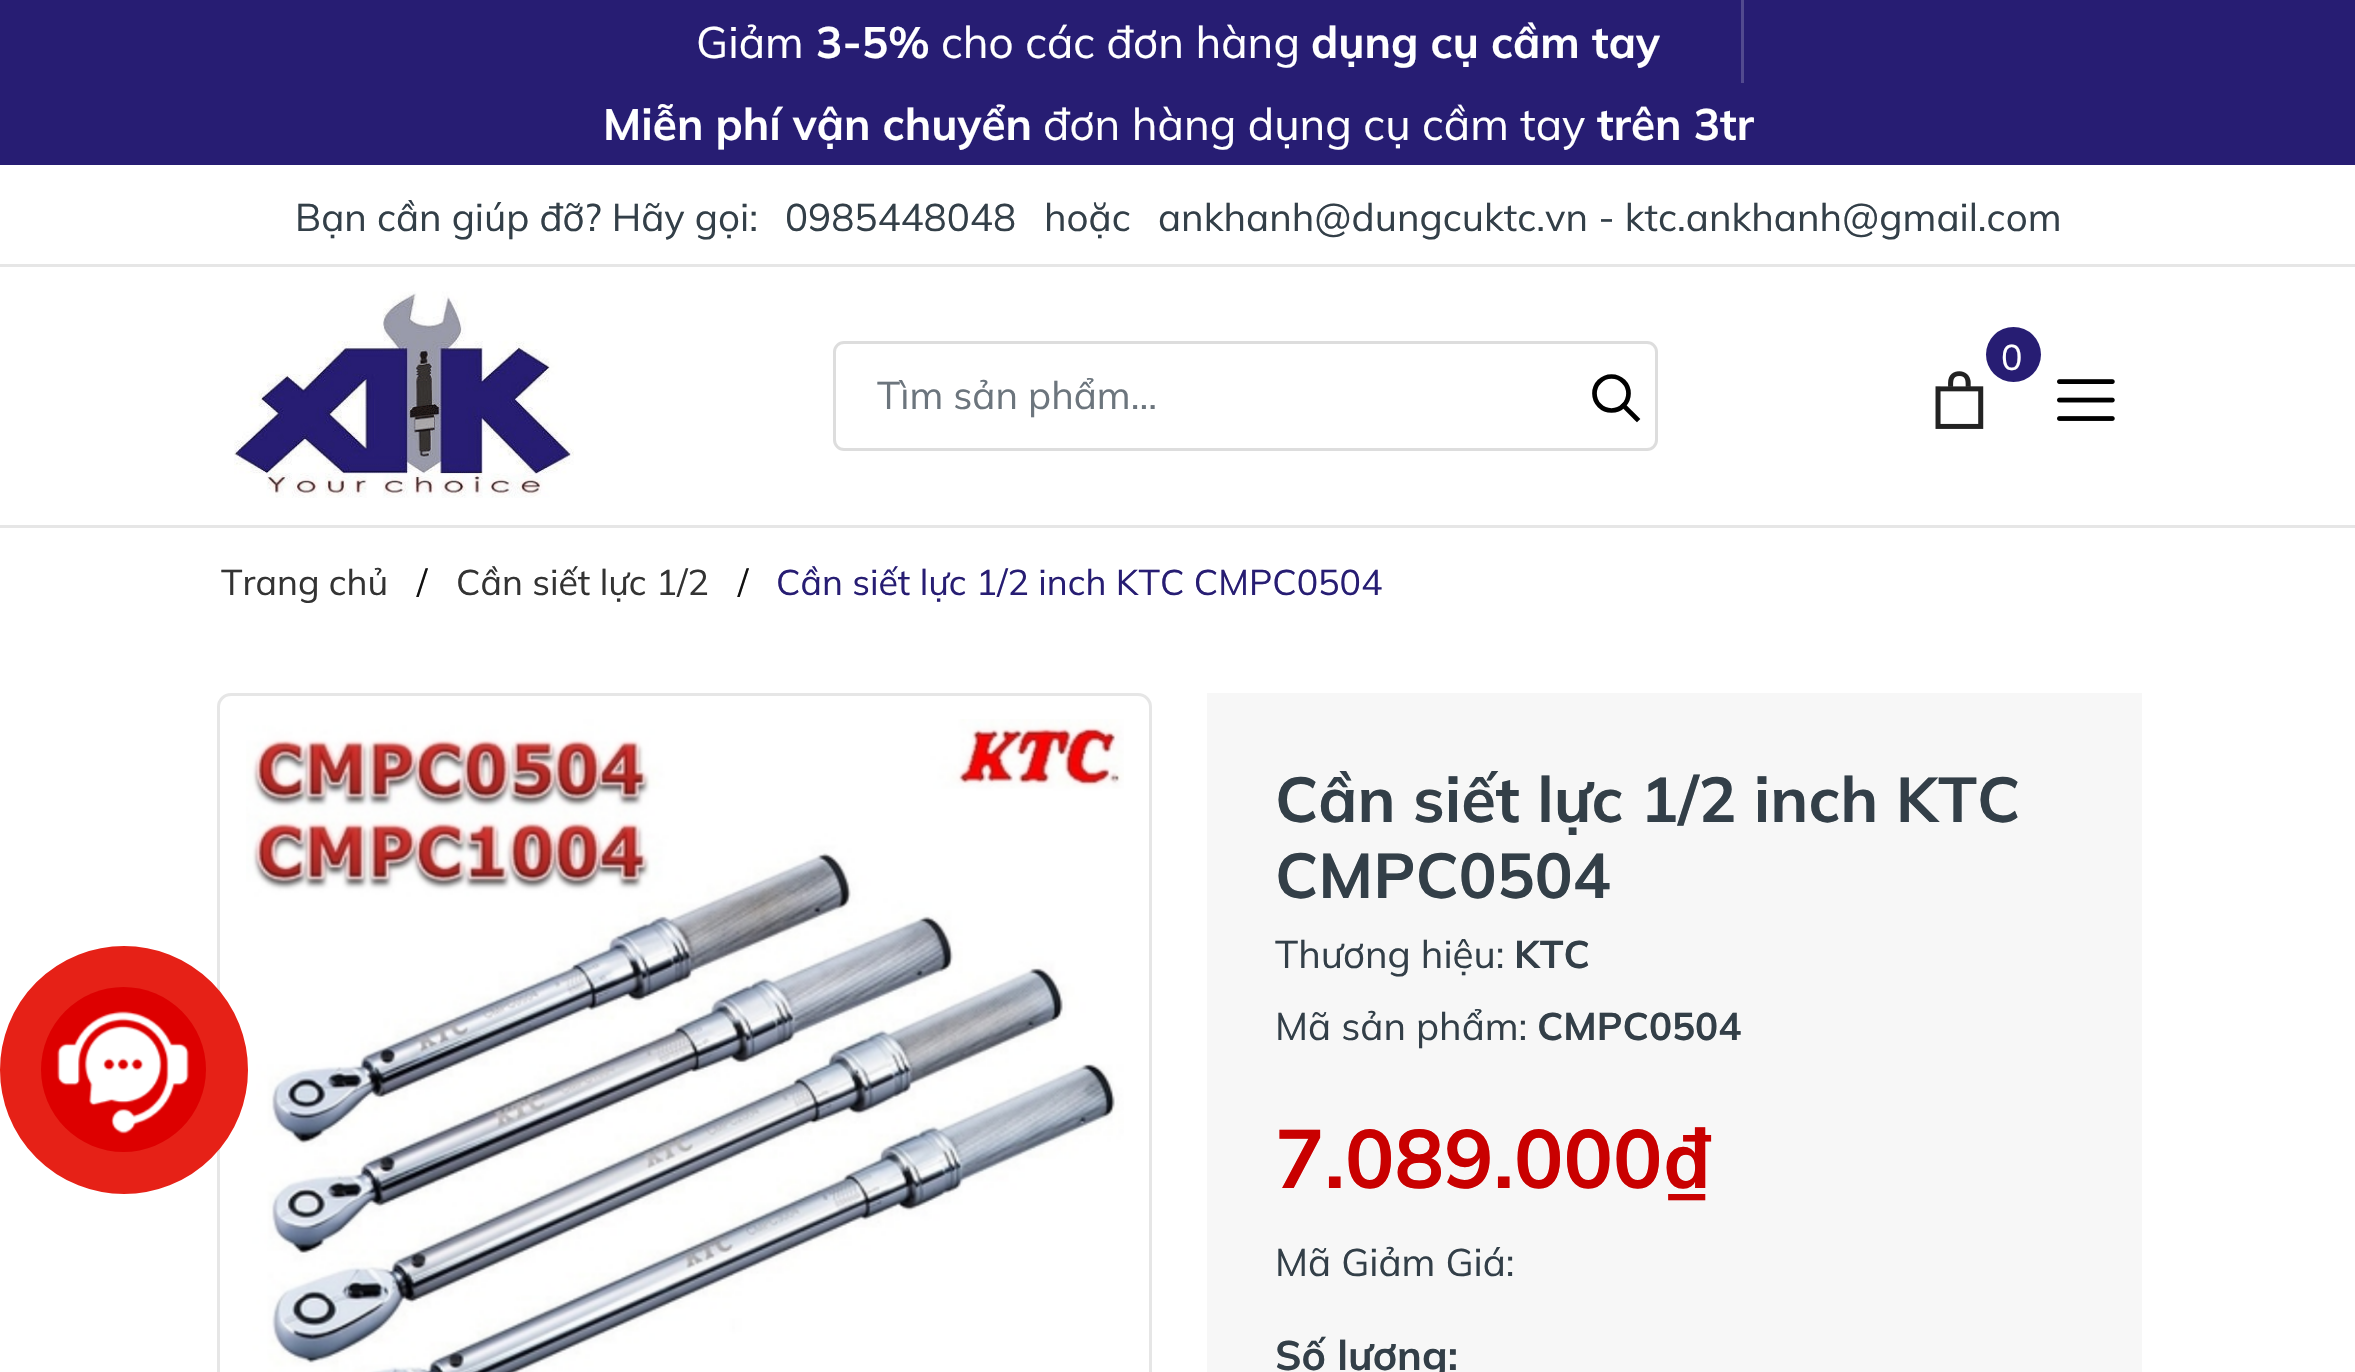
#include "include/core/SkBlurTypes.h"
#include "include/core/SkCanvas.h"
#include "include/core/SkData.h"
#include "include/core/SkFont.h"
#include "include/core/SkFontMgr.h"
#include "include/core/SkImage.h"
#include "include/core/SkMaskFilter.h"
#include "include/core/SkPaint.h"
#include "include/core/SkPathBuilder.h"
#include "include/core/SkTextBlob.h"
#include "include/effects/SkDashPathEffect.h"
#include "include/effects/SkGradientShader.h"
#include "include/utils/SkParsePath.h"

extern sk_sp<SkFontMgr> fontMgr;

void draw(SkCanvas* canvas) {
    SkPaint p;
    p.setAntiAlias(true);
    auto font = [&](const char* family, int weight, float size, bool italic = false) {
        SkFontStyle style(weight, SkFontStyle::kNormal_Width,
            italic ? SkFontStyle::kItalic_Slant : SkFontStyle::kUpright_Slant);
        SkFont result(fontMgr->matchFamilyStyle(family, style), size);
        result.setSubpixel(true);
        return result;
    };
    auto drawPhoto = [&](const char* path, float l, float t, float r, float b) {
        auto image = SkImages::DeferredFromEncodedData(SkData::MakeFromFileName(path));
        canvas->drawImageRect(image, SkRect::MakeLTRB(l, t, r, b), SkSamplingOptions());
    };
    canvas->clear(0xFFFFFFFF);
    p.setColor(0xFF271D73);
    canvas->drawRect(SkRect::MakeLTRB(0, 0, 2355, 165), p);
    auto font1 = font("Mulish", 400, 44);
    p.setColor(0xFFFFFFFF);
    canvas->drawString("Giảm", 696, 58, font1, p);
    auto font2 = font("Mulish", 700, 44);
    canvas->drawString("3-5%", 816, 58, font2, p);
    canvas->drawString("cho các đơn hàng", 941, 58, font1, p);
    canvas->drawString("dụng cụ cầm tay", 1311, 58, font2, p);
    p.setColor(0xFF524A8F);
    canvas->drawRect(SkRect::MakeLTRB(1741, 0, 1744, 83), p);
    p.setColor(0xFFFFFFFF);
    canvas->drawString("Miễn phí vận chuyển", 603, 140, font2, p);
    canvas->drawString("đơn hàng dụng cụ cầm tay", 1043, 140, font1, p);
    canvas->drawString("trên 3tr", 1597, 140, font2, p);
    p.setColor(0xFFE6E6E6);
    canvas->drawPath(SkPathBuilder().moveTo(0, 264).lineTo(0, 267).lineTo(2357, 267).lineTo(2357, 168).lineTo(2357, 264).close().detach(), p);
    auto font3 = font("Mulish", 400, 38.5f);
    p.setColor(0xFF333F48);
    {
        const struct { const char* s; float x, y; } items[] = {
            {"Bạn cần giúp đỡ? Hãy gọi:", 295, 231},
            {"0985448048", 785, 231},
            {"hoặc", 1044, 231},
            {"ankhanh@dungcuktc.vn - ktc.ankhanh@gmail.com", 1158, 231},
        };
        for (auto [s, x, y] : items) {
            canvas->drawString(s, x, y, font3, p);
        }
    }
    drawPhoto("media/1.png", 234, 291, 574, 498);
    p.setColor(0xFF271D73);
    canvas->drawCircle(2013.5f, 354.5f, 27.5f, p);
    auto font4 = font("Mulish", 400, 35.75f);
    p.setColor(0xFFFFFFFF);
    canvas->drawString("0", 2001, 370, font4, p);
    drawPhoto("media/2.png", 1935, 371, 1984, 429);
    drawPhoto("media/3.png", 2057, 379, 2115, 421);
    p.setStyle(SkPaint::kStroke_Style);
    p.setStrokeWidth(3);
    p.setColor(0xFFDDDDDD);
    canvas->drawRoundRect(SkRect::MakeLTRB(834.5f, 342.5f, 1656.5f, 449.5f), 9.5f, 9.5f, p);
    p.setStyle(SkPaint::kFill_Style);
    p.setColor(0xFF6C757D);
    canvas->drawString("Tìm sản phẩm...", 877, 409, font3, p);
    p.setStyle(SkPaint::kStroke_Style);
    p.setStrokeWidth(4.7f);
    p.setStrokeCap(SkPaint::kSquare_Cap);
    p.setColor(0xFF000000);
    canvas->drawPath(SkPathBuilder().moveTo(1637, 419).lineTo(1623.5f, 405.5f).detach(), p);
    p.setStrokeCap(SkPaint::kButt_Cap);
    canvas->drawCircle(1611.5f, 393.5f, 17, p);
    p.setStyle(SkPaint::kFill_Style);
    p.setColor(0xFFE6E6E6);
    canvas->drawRect(SkRect::MakeLTRB(0, 525, 2355, 528), p);
    p.setColor(0xFF333333);
    canvas->drawString("Trang chủ", 221, 595, font4, p);
    p.setColor(0xFF111111);
    canvas->drawString("/", 417, 595, font4, p);
    p.setColor(0xFF333333);
    canvas->drawString("Cần siết lực 1/2", 456, 595, font4, p);
    p.setColor(0xFF111111);
    canvas->drawString("/", 738, 595, font4, p);
    p.setColor(0xFF271D73);
    canvas->drawString("Cần siết lực 1/2 inch KTC CMPC0504", 776, 595, font4, p);
    p.setStyle(SkPaint::kStroke_Style);
    p.setStrokeWidth(3);
    p.setColor(0xFFE6E6E6);
    canvas->drawRoundRect(SkRect::MakeLTRB(218.5f, 694.5f, 1150.5f, 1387.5f), 12.5f, 12.5f, p);
    drawPhoto("media/5.png", 246, 719, 1124, 1372);
    p.setStyle(SkPaint::kFill_Style);
    p.setColor(0xFFE62117);
    canvas->drawCircle(124, 1070, 121, p);
    p.setStyle(SkPaint::kStroke_Style);
    p.setStrokeWidth(6);
    canvas->drawCircle(124, 1070, 121, p);
    p.setStyle(SkPaint::kFill_Style);
    p.setColor(0xFFDD0000);
    canvas->drawCircle(123.5f, 1069.5f, 82.5f, p);
    drawPhoto("media/4.png", 57, 1011, 190, 1134);
    p.setColor(0xFFF7F7F7);
    canvas->drawRect(SkRect::MakeLTRB(1207, 693, 2142, 1372), p);
    auto font5 = font("Mulish", 700, 63.25f);
    p.setColor(0xFF333F48);
    canvas->drawString("Cần siết lực 1/2 inch KTC", 1275, 822, font5, p);
    canvas->drawString("CMPC0504", 1275, 898, font5, p);
    canvas->drawString("Thương hiệu:", 1275, 968, font3, p);
    auto font6 = font("Mulish", 700, 38.5f);
    canvas->drawString("KTC", 1514, 968, font6, p);
    canvas->drawString("Mã sản phẩm:", 1275, 1040, font3, p);
    canvas->drawString("CMPC0504", 1537, 1040, font6, p);
    auto font7 = font("Mulish", 700, 82.5f);
    p.setColor(0xFFC90000);
    canvas->drawString("7.089.000₫", 1275, 1188, font7, p);
    p.setColor(0xFF333F48);
    canvas->drawString("Mã Giảm Giá:", 1275, 1276, font3, p);
    auto font8 = font("Mulish", 700, 41.25f);
    canvas->drawString("Số lượng:", 1275, 1370, font8, p);
}
